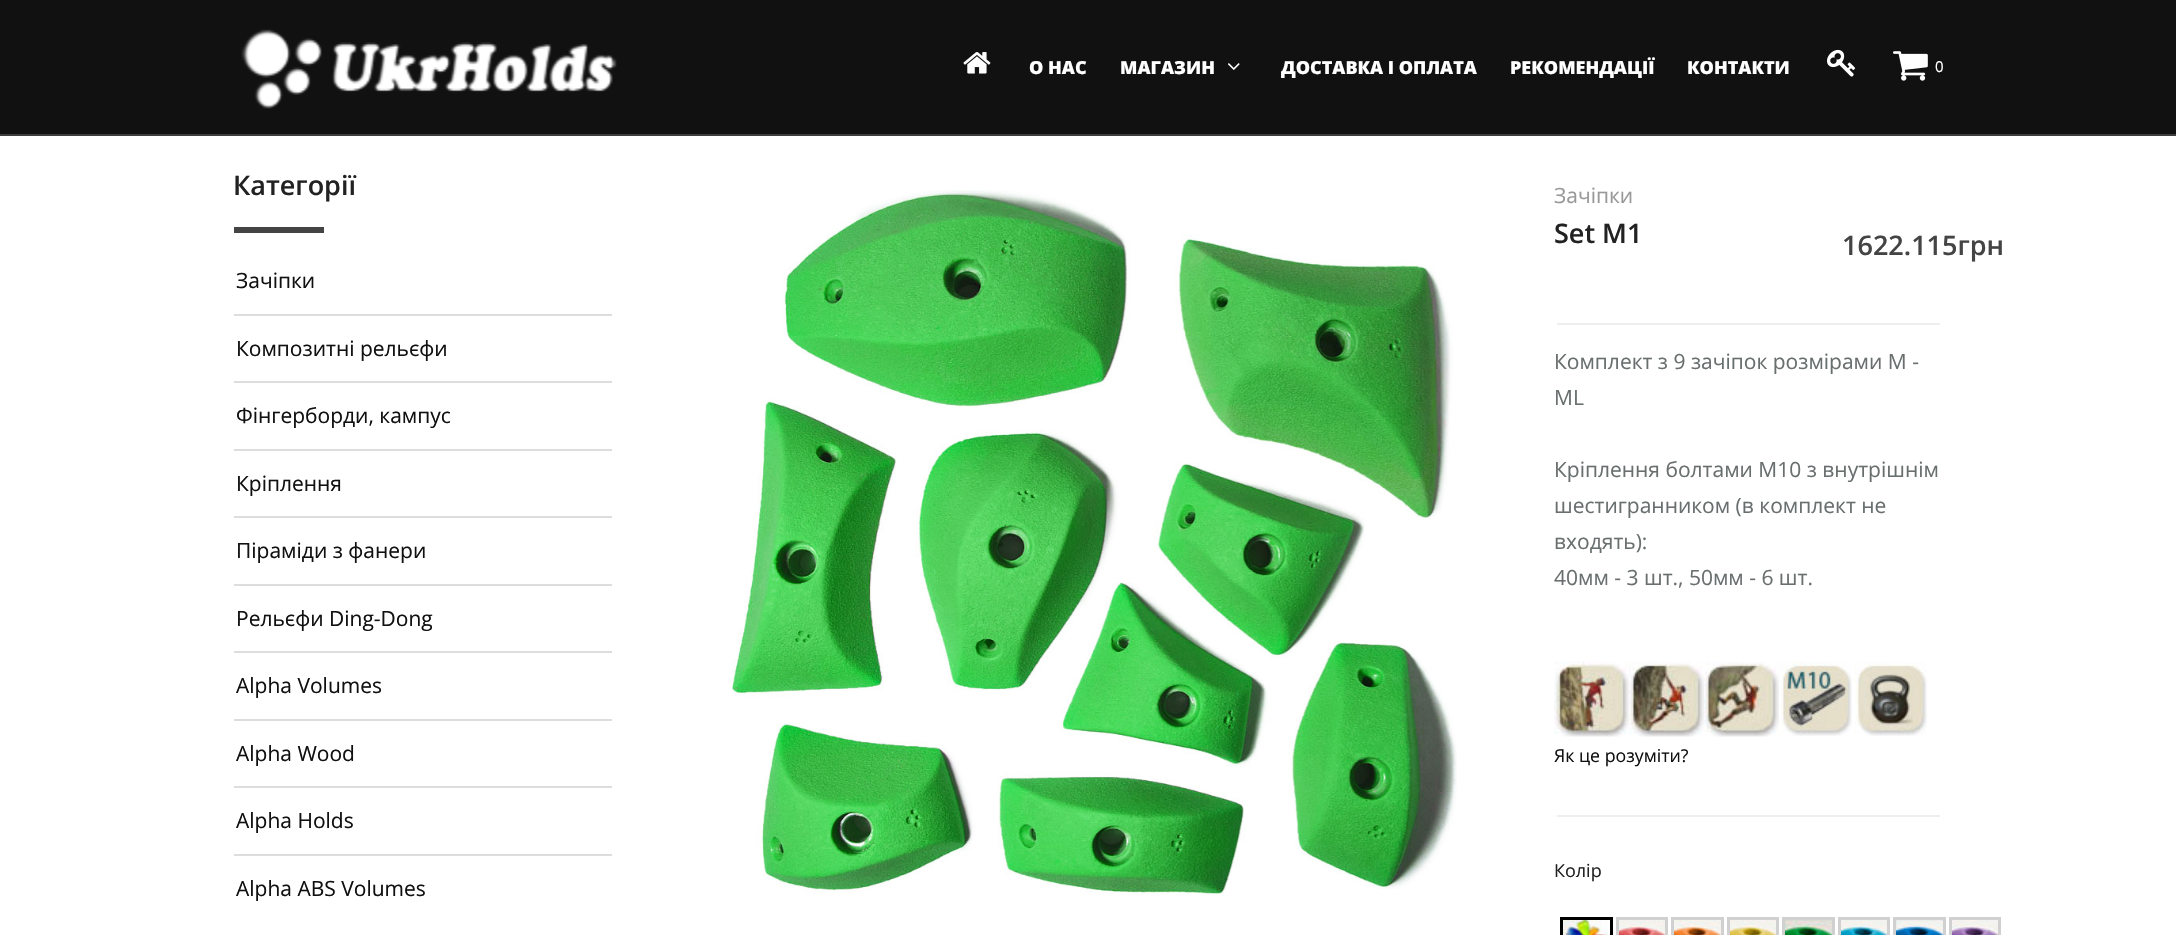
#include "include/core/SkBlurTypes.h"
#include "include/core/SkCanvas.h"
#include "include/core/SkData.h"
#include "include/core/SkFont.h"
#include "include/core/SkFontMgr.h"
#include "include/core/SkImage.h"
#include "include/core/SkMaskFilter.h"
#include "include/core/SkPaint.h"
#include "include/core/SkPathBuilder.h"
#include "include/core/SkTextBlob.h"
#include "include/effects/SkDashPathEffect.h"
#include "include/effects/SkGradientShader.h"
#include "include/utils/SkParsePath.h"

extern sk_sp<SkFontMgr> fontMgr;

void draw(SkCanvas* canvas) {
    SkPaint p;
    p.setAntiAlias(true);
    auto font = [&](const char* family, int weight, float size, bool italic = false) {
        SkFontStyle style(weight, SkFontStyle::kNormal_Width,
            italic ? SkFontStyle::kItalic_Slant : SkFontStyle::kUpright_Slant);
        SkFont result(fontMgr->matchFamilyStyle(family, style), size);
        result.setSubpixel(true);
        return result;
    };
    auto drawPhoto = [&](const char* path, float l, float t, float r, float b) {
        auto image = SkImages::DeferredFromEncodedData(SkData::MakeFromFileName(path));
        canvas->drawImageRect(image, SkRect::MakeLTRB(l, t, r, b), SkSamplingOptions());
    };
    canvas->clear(0xFFFFFFFF);
    p.setColor(0xFF111111);
    canvas->drawRect(SkRect::MakeLTRB(0, 0, 2176, 134), p);
    p.setColor(0xFF3D3D3D);
    canvas->drawRect(SkRect::MakeLTRB(0, 134, 2176, 136), p);
    drawPhoto("media/1.png", 241, 29, 617, 109);
    drawPhoto("media/2.png", 963, 52, 991, 74);
    auto font1 = font("Open Sans", 800, 18);
    p.setColor(0xFFFFFFFF);
    canvas->drawString("О НАС", 1029, 74, font1, p);
    canvas->drawString("МАГАЗИН", 1120, 74, font1, p);
    drawPhoto("media/3.png", 1228, 63, 1240, 70);
    {
        const struct { const char* s; float x, y; } items[] = {
            {"ДОСТАВКА І ОПЛАТА", 1281, 74},
            {"РЕКОМЕНДАЦІЇ", 1510, 74},
            {"КОНТАКТИ", 1687, 74},
        };
        for (auto [s, x, y] : items) {
            canvas->drawString(s, x, y, font1, p);
        }
    }
    drawPhoto("media/4.png", 1827, 49, 1856, 77);
    drawPhoto("media/5.png", 1893, 51, 1928, 81);
    auto font2 = font("Open Sans", 400, 15);
    canvas->drawString("0", 1935, 72, font2, p);
    auto font3 = font("Open Sans", 600, 27);
    p.setColor(0xFF222222);
    canvas->drawString("Категорії", 233, 195, font3, p);
    p.setColor(0xFF444444);
    canvas->drawRect(SkRect::MakeLTRB(234, 227, 324, 233), p);
    p.setColor(0xFFDDDDDD);
    canvas->drawRect(SkRect::MakeLTRB(234, 314, 612, 316), p);
    auto font4 = font("Open Sans", 400, 21);
    p.setColor(0xFF111111);
    canvas->drawString("Зачіпки", 236, 288, font4, p);
    p.setColor(0xFFDDDDDD);
    canvas->drawRect(SkRect::MakeLTRB(234, 381, 612, 383), p);
    p.setColor(0xFF111111);
    canvas->drawString("Композитні рельєфи", 236, 356, font4, p);
    p.setColor(0xFFDDDDDD);
    canvas->drawRect(SkRect::MakeLTRB(234, 449, 612, 451), p);
    p.setColor(0xFF111111);
    canvas->drawString("Фінгерборди, кампус", 236, 423, font4, p);
    p.setColor(0xFFDDDDDD);
    canvas->drawRect(SkRect::MakeLTRB(234, 516, 612, 518), p);
    p.setColor(0xFF111111);
    canvas->drawString("Кріплення", 236, 491, font4, p);
    p.setColor(0xFFDDDDDD);
    canvas->drawRect(SkRect::MakeLTRB(234, 584, 612, 586), p);
    p.setColor(0xFF111111);
    canvas->drawString("Піраміди з фанери", 236, 558, font4, p);
    p.setColor(0xFFDDDDDD);
    canvas->drawRect(SkRect::MakeLTRB(234, 651, 612, 653), p);
    p.setColor(0xFF111111);
    canvas->drawString("Рельєфи Ding-Dong", 236, 626, font4, p);
    p.setColor(0xFFDDDDDD);
    canvas->drawRect(SkRect::MakeLTRB(234, 719, 612, 721), p);
    p.setColor(0xFF111111);
    canvas->drawString("Alpha Volumes", 236, 693, font4, p);
    p.setColor(0xFFDDDDDD);
    canvas->drawRect(SkRect::MakeLTRB(234, 786, 612, 788), p);
    p.setColor(0xFF111111);
    canvas->drawString("Alpha Wood", 236, 761, font4, p);
    p.setColor(0xFFDDDDDD);
    canvas->drawRect(SkRect::MakeLTRB(234, 854, 612, 856), p);
    p.setColor(0xFF111111);
    canvas->drawString("Alpha Holds", 236, 828, font4, p);
    canvas->drawString("Alpha ABS Volumes", 236, 896, font4, p);
    drawPhoto("media/6.png", 732, 190, 1457, 894);
    p.setColor(0xFF999999);
    canvas->drawString("Зачіпки", 1554, 203, font4, p);
    p.setColor(0xFF222222);
    canvas->drawString("Set M1", 1554, 243, font3, p);
    p.setColor(0xFF444444);
    canvas->drawString("1622.115грн", 1842, 255, font3, p);
    p.setColor(0xFFEEEEEE);
    canvas->drawRect(SkRect::MakeLTRB(1557, 323, 1940, 325), p);
    p.setColor(0xFF696F6F);
    {
        const struct { const char* s; float x, y; } items[] = {
            {"Комплект з 9 зачіпок розмірами M -", 1554, 369},
            {"ML", 1554, 405},
            {"Кріплення болтами М10 з внутрішнім", 1554, 477},
            {"шестигранником (в комплект не", 1554, 513},
            {"входять):", 1554, 549},
            {"40мм - 3 шт., 50мм - 6 шт.", 1554, 585},
        };
        for (auto [s, x, y] : items) {
            canvas->drawString(s, x, y, font4, p);
        }
    }
    drawPhoto("media/7.png", 1554, 661, 1629, 737);
    drawPhoto("media/8.png", 1629, 661, 1704, 737);
    drawPhoto("media/9.png", 1704, 661, 1779, 737);
    drawPhoto("media/10.png", 1779, 661, 1852, 736);
    drawPhoto("media/11.png", 1854, 662, 1927, 736);
    auto font5 = font("Open Sans", 400, 17.75f);
    p.setColor(0xFF111111);
    canvas->drawString("Як це розуміти?", 1554, 762, font5, p);
    p.setColor(0xFFEEEEEE);
    canvas->drawRect(SkRect::MakeLTRB(1557, 815, 1940, 817), p);
    auto font6 = font("Open Sans", 400, 18);
    p.setColor(0xFF222222);
    canvas->drawString("Колір", 1554, 877, font6, p);
    drawPhoto("media/12.png", 1563, 920, 1608, 935);
    p.setStyle(SkPaint::kStroke_Style);
    p.setStrokeWidth(3);
    p.setColor(0xFF000000);
    canvas->drawRect(SkRect::MakeLTRB(1561.5f, 918.5f, 1611.5f, 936.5f), p);
    drawPhoto("media/13.png", 1619, 920, 1665, 935);
    p.setColor(0xFFD0D0D0);
    canvas->drawRect(SkRect::MakeLTRB(1617.5f, 918.5f, 1666.5f, 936.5f), p);
    drawPhoto("media/14.png", 1674, 920, 1721, 935);
    canvas->drawRect(SkRect::MakeLTRB(1672.5f, 918.5f, 1722.5f, 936.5f), p);
    drawPhoto("media/15.png", 1730, 920, 1776, 935);
    canvas->drawRect(SkRect::MakeLTRB(1728.5f, 918.5f, 1777.5f, 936.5f), p);
    drawPhoto("media/16.png", 1785, 920, 1832, 935);
    canvas->drawRect(SkRect::MakeLTRB(1783.5f, 918.5f, 1833.5f, 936.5f), p);
    drawPhoto("media/17.png", 1841, 920, 1887, 935);
    canvas->drawRect(SkRect::MakeLTRB(1839.5f, 918.5f, 1888.5f, 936.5f), p);
    drawPhoto("media/18.png", 1896, 920, 1943, 935);
    canvas->drawRect(SkRect::MakeLTRB(1894.5f, 918.5f, 1944.5f, 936.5f), p);
    drawPhoto("media/19.png", 1952, 920, 1998, 935);
    canvas->drawRect(SkRect::MakeLTRB(1950.5f, 918.5f, 1999.5f, 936.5f), p);
}
